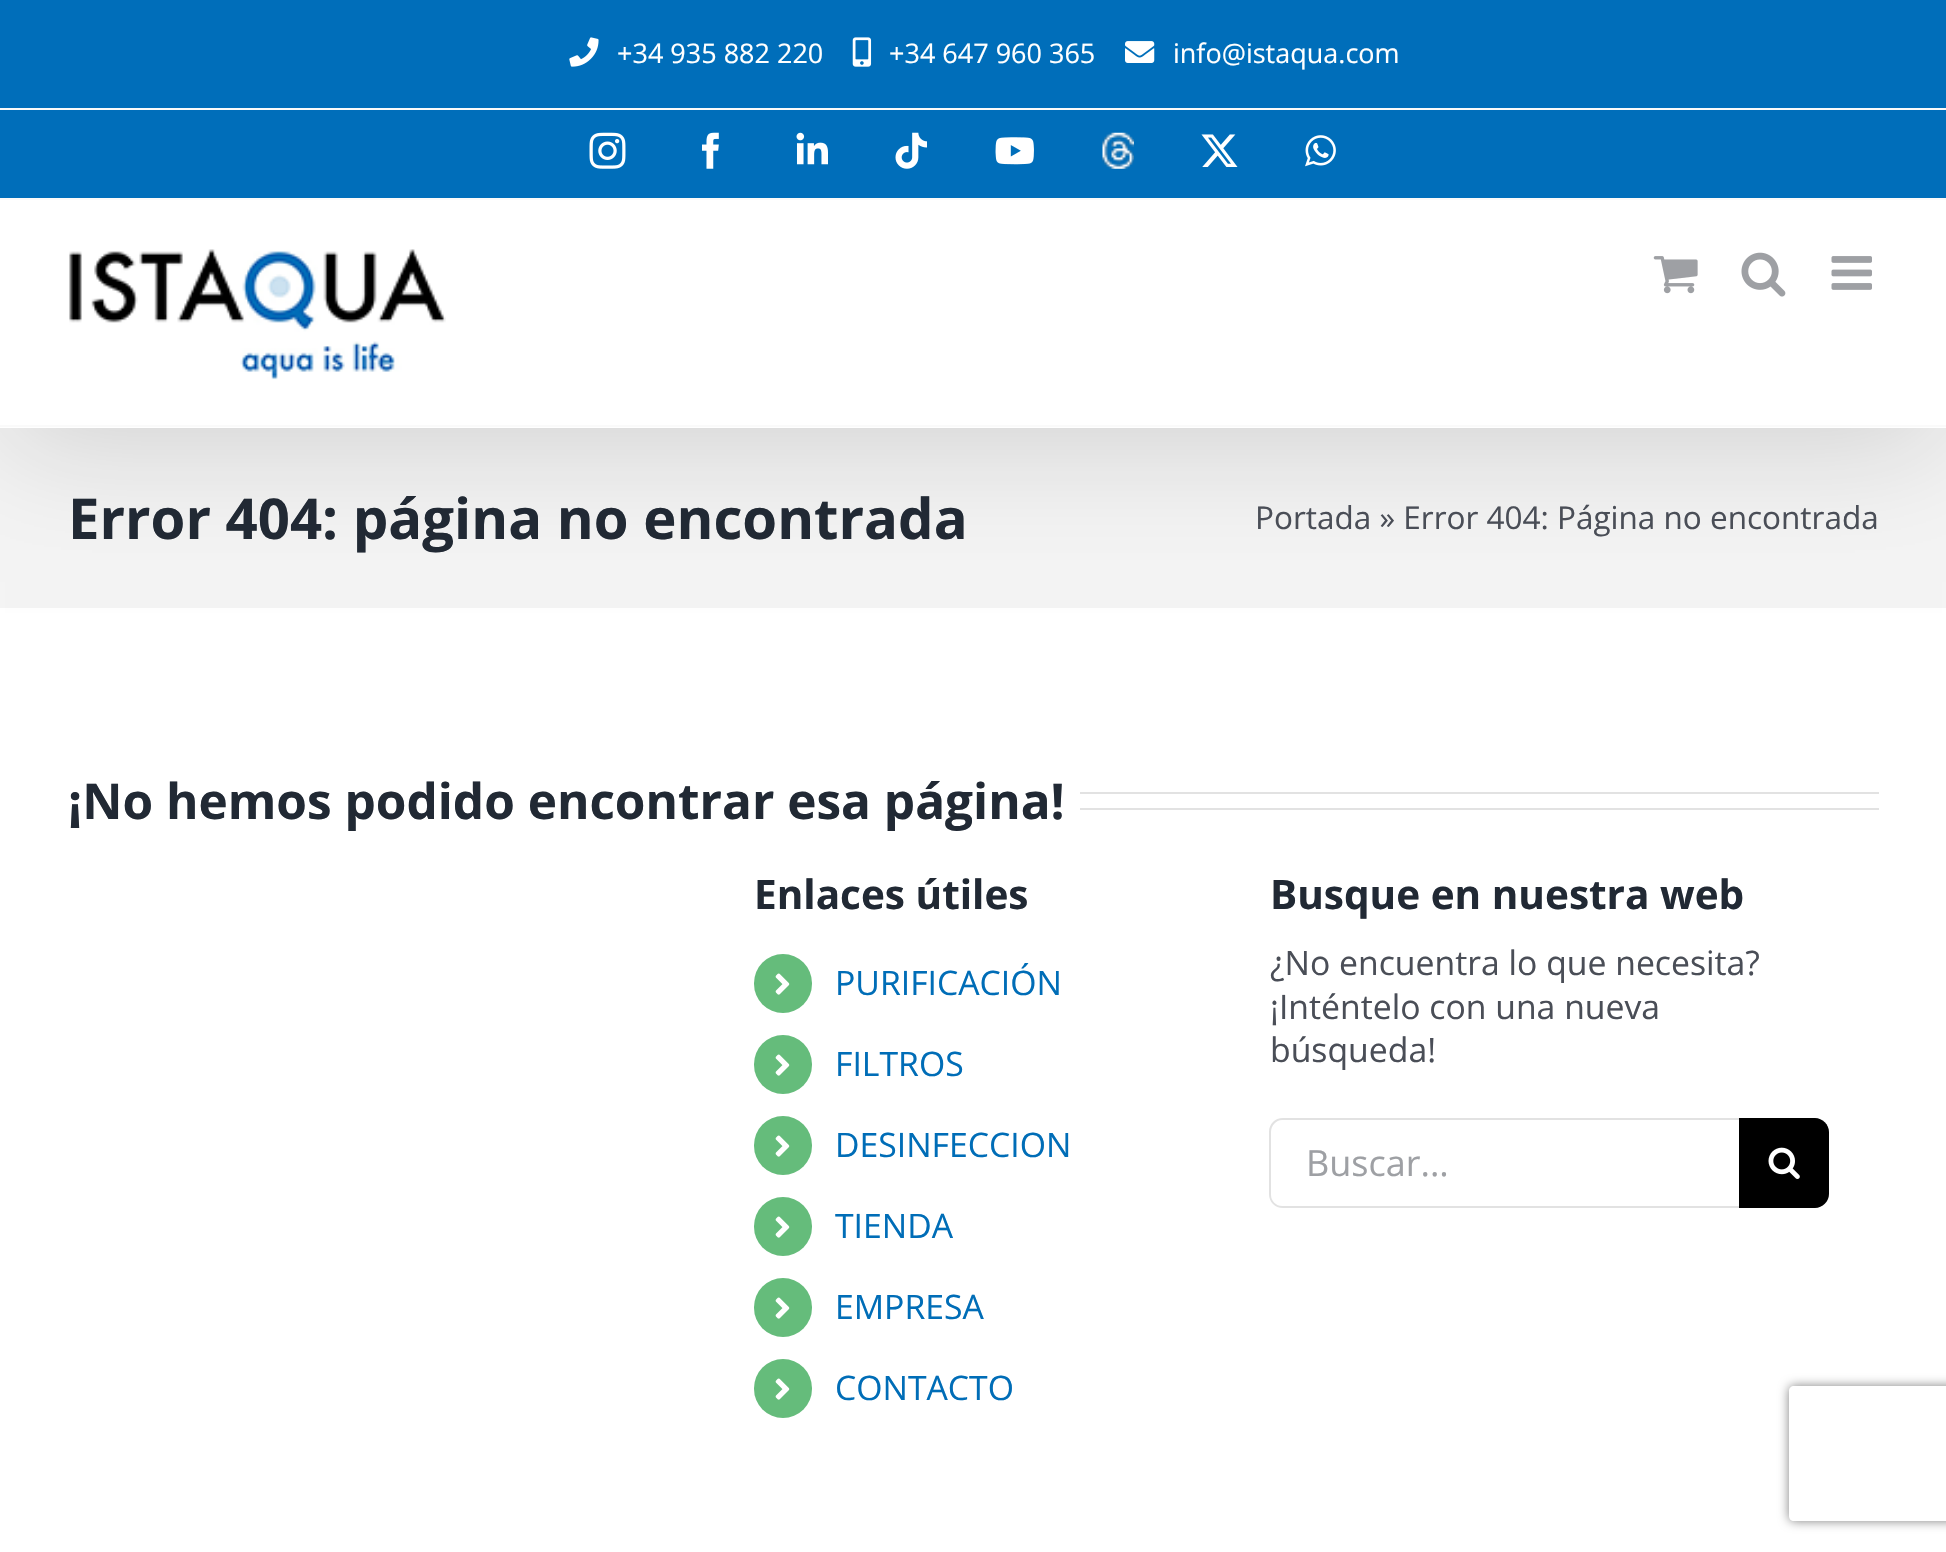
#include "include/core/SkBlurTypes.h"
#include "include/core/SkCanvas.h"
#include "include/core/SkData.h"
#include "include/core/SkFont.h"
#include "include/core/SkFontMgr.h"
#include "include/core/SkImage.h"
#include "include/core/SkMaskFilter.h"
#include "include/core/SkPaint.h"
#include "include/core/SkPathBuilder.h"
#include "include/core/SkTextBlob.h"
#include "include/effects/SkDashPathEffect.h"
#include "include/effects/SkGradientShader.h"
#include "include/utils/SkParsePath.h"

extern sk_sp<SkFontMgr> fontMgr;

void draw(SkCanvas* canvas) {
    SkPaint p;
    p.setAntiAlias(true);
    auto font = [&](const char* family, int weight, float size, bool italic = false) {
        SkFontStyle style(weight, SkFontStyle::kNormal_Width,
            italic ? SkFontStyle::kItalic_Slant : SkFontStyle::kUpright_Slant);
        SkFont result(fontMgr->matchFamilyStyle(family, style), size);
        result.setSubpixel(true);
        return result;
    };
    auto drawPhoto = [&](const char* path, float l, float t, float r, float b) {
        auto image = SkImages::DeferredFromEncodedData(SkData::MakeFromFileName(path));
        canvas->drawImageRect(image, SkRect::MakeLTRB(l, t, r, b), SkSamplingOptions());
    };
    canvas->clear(0xFFFFFFFF);
    p.setColor(0xFFF4F4F4);
    canvas->drawRect(SkRect::MakeLTRB(0, 428, 1946, 608), p);
    p.setColor(0x24000000);
    p.setMaskFilter(SkMaskFilter::MakeBlur(kNormal_SkBlurStyle, 56));
    canvas->drawRect(SkRect::MakeLTRB(5, 27, 1942, 446), p);
    p.setMaskFilter(nullptr);
    {
        const struct { float l, t, r, b; SkColor color; } items[] = {
            {0, 0, 1946, 198, 0xFF006EBA},
            {0, 198, 1946, 200, 0xFFFAFAFA},
            {0, 108, 1946, 110, 0xFFFAFAFA},
        };
        for (auto [l, t, r, b, color] : items) {
            p.setColor(color);
            canvas->drawRect(SkRect::MakeLTRB(l, t, r, b), p);
        }
    }
    drawPhoto("media/1.png", 569, 37, 599, 67);
    auto font1 = font("Open Sans", 400, 27);
    p.setColor(0xFFFFFFFF);
    canvas->drawString("+34 935 882 220", 617, 63, font1, p);
    drawPhoto("media/2.png", 852, 37, 872, 67);
    canvas->drawString("+34 647 960 365", 889, 63, font1, p);
    drawPhoto("media/3.png", 1125, 41, 1155, 63);
    canvas->drawString("info@istaqua.com", 1173, 63, font1, p);
    drawPhoto("media/4.png", 589, 132, 626, 169);
    drawPhoto("media/5.png", 702, 132, 719, 169);
    drawPhoto("media/6.png", 796, 132, 828, 165);
    drawPhoto("media/7.png", 895, 132, 927, 169);
    drawPhoto("media/8.png", 995, 137, 1034, 165);
    drawPhoto("media/9.png", 1102, 132, 1134, 169);
    drawPhoto("media/10.png", 1201, 134, 1238, 167);
    drawPhoto("media/11.png", 1305, 135, 1336, 167);
    canvas->drawRect(SkRect::MakeLTRB(0, 200, 1946, 428), p);
    p.setColor(0xFFFAFAFA);
    canvas->drawRect(SkRect::MakeLTRB(0, 425, 1946, 427), p);
    drawPhoto("media/12.png", 69, 249, 446, 380);
    drawPhoto("media/13.png", 1653, 256, 1698, 294);
    drawPhoto("media/14.png", 1741, 252, 1786, 297);
    drawPhoto("media/15.png", 1831, 256, 1872, 290);
    auto font2 = font("Open Sans", 700, 56.25f);
    p.setColor(0xFF212934);
    canvas->drawString("Error 404: página no encontrada", 68, 539, font2, p);
    auto font3 = font("Open Sans", 400, 31.5f);
    p.setColor(0xFF4A4E57);
    canvas->drawString("Portada » Error 404: Página no encontrada", 1255, 529, font3, p);
    auto font4 = font("Open Sans", 700, 49.5f);
    p.setColor(0xFF212934);
    canvas->drawString("¡No hemos podido encontrar esa página!", 68, 819, font4, p);
    p.setColor(0xFFE2E2E2);
    canvas->drawRect(SkRect::MakeLTRB(1080, 792, 1879, 794), p);
    canvas->drawRect(SkRect::MakeLTRB(1080, 808, 1879, 810), p);
    auto font5 = font("Open Sans", 700, 40.5f);
    p.setColor(0xFF212934);
    canvas->drawString("Enlaces útiles", 754, 909, font5, p);
    p.setColor(0xFF65BC7B);
    canvas->drawRoundRect(SkRect::MakeLTRB(754, 954, 812, 1013), 29, 29, p);
    drawPhoto("media/16.png", 775, 973, 790, 995);
    auto font6 = font("Open Sans", 400, 33.75f);
    p.setColor(0xFF006DB7);
    canvas->drawString("PURIFICACIÓN", 835, 995, font6, p);
    p.setColor(0xFF65BC7B);
    canvas->drawRoundRect(SkRect::MakeLTRB(754, 1035, 812, 1094), 29, 29, p);
    drawPhoto("media/16.png", 775, 1054, 790, 1076);
    p.setColor(0xFF006DB7);
    canvas->drawString("FILTROS", 835, 1076, font6, p);
    p.setColor(0xFF65BC7B);
    canvas->drawRoundRect(SkRect::MakeLTRB(754, 1116, 812, 1175), 29, 29, p);
    drawPhoto("media/16.png", 775, 1135, 790, 1157);
    p.setColor(0xFF006DB7);
    canvas->drawString("DESINFECCION", 835, 1157, font6, p);
    p.setColor(0xFF65BC7B);
    canvas->drawRoundRect(SkRect::MakeLTRB(754, 1197, 812, 1256), 29, 29, p);
    drawPhoto("media/16.png", 775, 1216, 790, 1238);
    p.setColor(0xFF006DB7);
    canvas->drawString("TIENDA", 835, 1238, font6, p);
    p.setColor(0xFF65BC7B);
    canvas->drawRoundRect(SkRect::MakeLTRB(754, 1278, 812, 1337), 29, 29, p);
    drawPhoto("media/16.png", 775, 1297, 790, 1319);
    p.setColor(0xFF006DB7);
    canvas->drawString("EMPRESA", 835, 1319, font6, p);
    p.setColor(0xFF65BC7B);
    canvas->drawRoundRect(SkRect::MakeLTRB(754, 1359, 812, 1418), 29, 29, p);
    drawPhoto("media/16.png", 775, 1378, 790, 1400);
    p.setColor(0xFF006DB7);
    canvas->drawString("CONTACTO", 835, 1400, font6, p);
    p.setColor(0xFF212934);
    canvas->drawString("Busque en nuestra web", 1270, 909, font5, p);
    p.setColor(0xFF4A4E57);
    {
        const struct { const char* s; float x, y; } items[] = {
            {"¿No encuentra lo que necesita?", 1270, 975},
            {"¡Inténtelo con una nueva", 1270, 1019},
            {"búsqueda!", 1270, 1062},
        };
        for (auto [s, x, y] : items) {
            canvas->drawString(s, x, y, font6, p);
        }
    }
    p.setColor(0xFFE2E2E2);
    canvas->drawPath(SkPathBuilder().moveTo(1282, 1120).lineTo(1739, 1120).lineTo(1739, 1118).lineTo(1283, 1118).cubicTo(1275, 1118, 1269, 1124, 1269, 1132).lineTo(1269, 1194).cubicTo(1269, 1202, 1275, 1208, 1283, 1208).lineTo(1739, 1208).lineTo(1739, 1206).lineTo(1282, 1206).cubicTo(1276, 1206, 1271, 1201, 1271, 1195).lineTo(1271, 1132).cubicTo(1271, 1126, 1276, 1120, 1282, 1120).close().detach(), p);
    auto font7 = font("Open Sans", 400, 36);
    p.setColor(0xFF9EA0A4);
    canvas->drawString("Buscar...", 1306, 1176, font7, p);
    p.setColor(0xFF000000);
    canvas->drawPath(SkPathBuilder().moveTo(1739, 1118).lineTo(1815, 1118).cubicTo(1822.5f, 1118, 1829, 1124.5f, 1829, 1132).lineTo(1829, 1194).cubicTo(1829, 1201.5f, 1822.5f, 1208, 1815, 1208).lineTo(1739, 1208).close().detach(), p);
    drawPhoto("media/17.png", 1768, 1147, 1800, 1179);
    canvas->save();
    canvas->clipPath(SkPathBuilder(SkPathFillType::kEvenOdd).moveTo(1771, 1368).lineTo(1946, 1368).lineTo(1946, 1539).lineTo(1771, 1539).close().moveTo(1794, 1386).lineTo(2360, 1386).cubicTo(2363, 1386, 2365, 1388, 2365, 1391).lineTo(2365, 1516).cubicTo(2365, 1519, 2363, 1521, 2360, 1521).lineTo(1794, 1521).cubicTo(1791, 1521, 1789, 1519, 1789, 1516).lineTo(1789, 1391).cubicTo(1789, 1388, 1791, 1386, 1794, 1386).close().detach(), true);
    p.setColor(0xFF808080);
    p.setMaskFilter(SkMaskFilter::MakeBlur(kNormal_SkBlurStyle, 5.5f));
    canvas->drawRoundRect(SkRect::MakeLTRB(1789, 1386, 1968, 1521), 5, 5, p);
    p.setMaskFilter(nullptr);
    canvas->restore();
}
